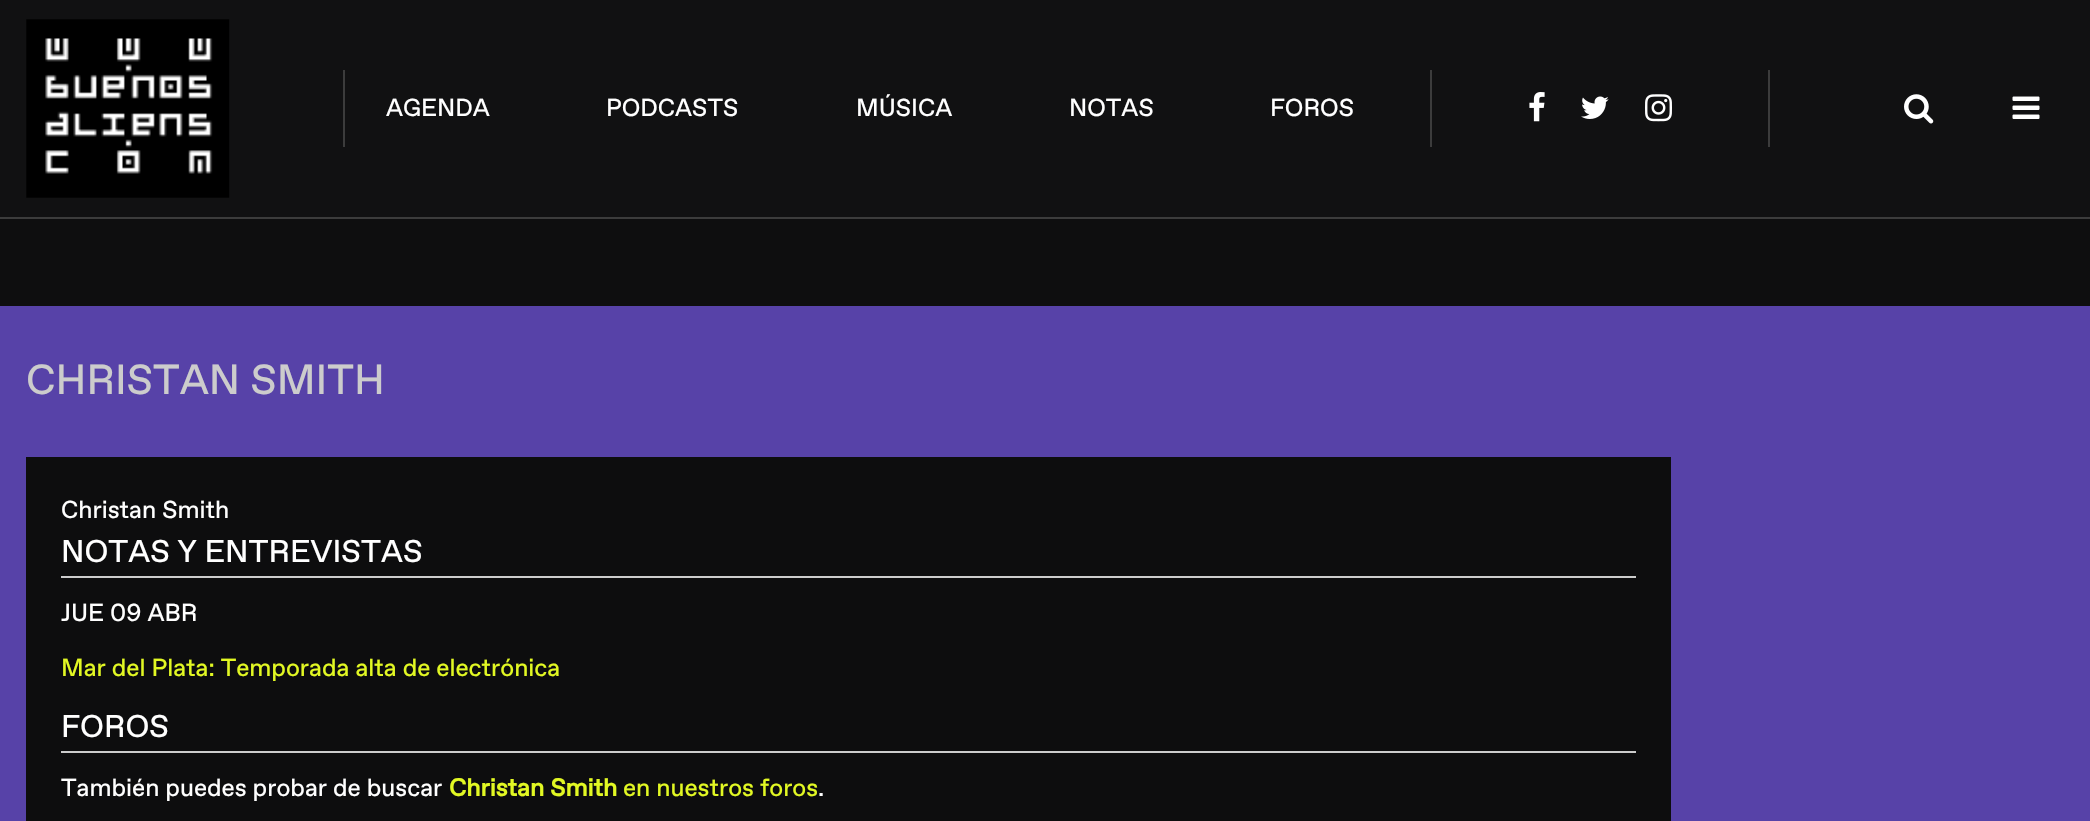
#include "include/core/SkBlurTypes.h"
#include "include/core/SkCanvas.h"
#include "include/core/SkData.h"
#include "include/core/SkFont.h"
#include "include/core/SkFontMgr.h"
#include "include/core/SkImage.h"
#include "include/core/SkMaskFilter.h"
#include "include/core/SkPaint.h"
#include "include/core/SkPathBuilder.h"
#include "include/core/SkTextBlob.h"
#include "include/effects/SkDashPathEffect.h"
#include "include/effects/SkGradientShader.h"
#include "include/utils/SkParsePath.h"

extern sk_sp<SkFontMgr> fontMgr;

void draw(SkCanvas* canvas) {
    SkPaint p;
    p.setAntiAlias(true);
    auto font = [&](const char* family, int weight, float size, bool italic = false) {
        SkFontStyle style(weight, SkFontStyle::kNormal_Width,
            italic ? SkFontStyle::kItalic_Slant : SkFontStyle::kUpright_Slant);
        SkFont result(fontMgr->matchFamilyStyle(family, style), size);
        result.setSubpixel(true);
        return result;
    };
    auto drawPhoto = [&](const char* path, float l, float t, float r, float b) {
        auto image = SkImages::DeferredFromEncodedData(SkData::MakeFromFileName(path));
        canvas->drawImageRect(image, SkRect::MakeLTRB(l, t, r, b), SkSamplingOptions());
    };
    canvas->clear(0xFF0E0E0F);
    p.setColor(0xFF111112);
    canvas->drawRect(SkRect::MakeLTRB(0, 0, 2090, 217), p);
    p.setColor(0xFF3C3C3C);
    canvas->drawRect(SkRect::MakeLTRB(0, 217, 2090, 219), p);
    drawPhoto("media/1.png", 26, 19, 230, 198);
    canvas->drawRect(SkRect::MakeLTRB(1430, 70, 1432, 147), p);
    canvas->drawRect(SkRect::MakeLTRB(343, 70, 345, 147), p);
    auto font1 = font("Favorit", 400, 24.5f);
    p.setColor(0xFFFFFFFF);
    {
        const struct { const char* s; float x, y; } items[] = {
            {"AGENDA", 386, 116},
            {"PODCASTS", 606, 116},
            {"MÚSICA", 856, 116},
            {"NOTAS", 1069, 116},
            {"FOROS", 1270, 116},
        };
        for (auto [s, x, y] : items) {
            canvas->drawString(s, x, y, font1, p);
        }
    }
    drawPhoto("media/2.png", 1529, 92, 1545, 122);
    drawPhoto("media/3.png", 1581, 96, 1609, 119);
    drawPhoto("media/4.png", 1645, 94, 1672, 122);
    p.setColor(0xFF3C3C3C);
    canvas->drawRect(SkRect::MakeLTRB(1768, 70, 1770, 147), p);
    drawPhoto("media/5.png", 1904, 94, 1934, 124);
    drawPhoto("media/6.png", 2012, 96, 2040, 119);
    p.setColor(0xFF5742A8);
    canvas->drawRect(SkRect::MakeLTRB(0, 306, 2090, 821), p);
    auto font2 = font("Favorit", 400, 42);
    p.setColor(0xFFCCCCCC);
    canvas->drawString("CHRISTAN SMITH", 26, 394, font2, p);
    p.setColor(0xFF0D0D0E);
    canvas->drawRect(SkRect::MakeLTRB(26, 457, 1671, 821), p);
    p.setColor(0xFFFFFFFF);
    canvas->drawString("Christan Smith", 61, 518, font1, p);
    p.setColor(0xFFCCCCCC);
    canvas->drawRect(SkRect::MakeLTRB(61, 576, 1636, 578), p);
    auto font3 = font("Favorit", 400, 31.5f);
    p.setColor(0xFFFFFFFF);
    canvas->drawString("NOTAS Y ENTREVISTAS", 61, 562, font3, p);
    canvas->drawString("JUE 09 ABR", 61, 621, font1, p);
    p.setColor(0xFFE2F823);
    canvas->drawString("Mar del Plata: Temporada alta de electrónica", 61, 676, font1, p);
    p.setColor(0xFFCCCCCC);
    canvas->drawRect(SkRect::MakeLTRB(61, 751, 1636, 753), p);
    p.setColor(0xFFFFFFFF);
    canvas->drawString("FOROS", 61, 737, font3, p);
    canvas->drawString("También puedes probar de buscar", 61, 796, font1, p);
    auto font4 = font("Favorit", 700, 24.5f);
    p.setColor(0xFFE2F823);
    canvas->drawString("Christan Smith", 449, 796, font4, p);
    canvas->drawString("en nuestros foros", 623, 796, font1, p);
    p.setColor(0xFFFFFFFF);
    canvas->drawString(".", 818, 796, font1, p);
}
